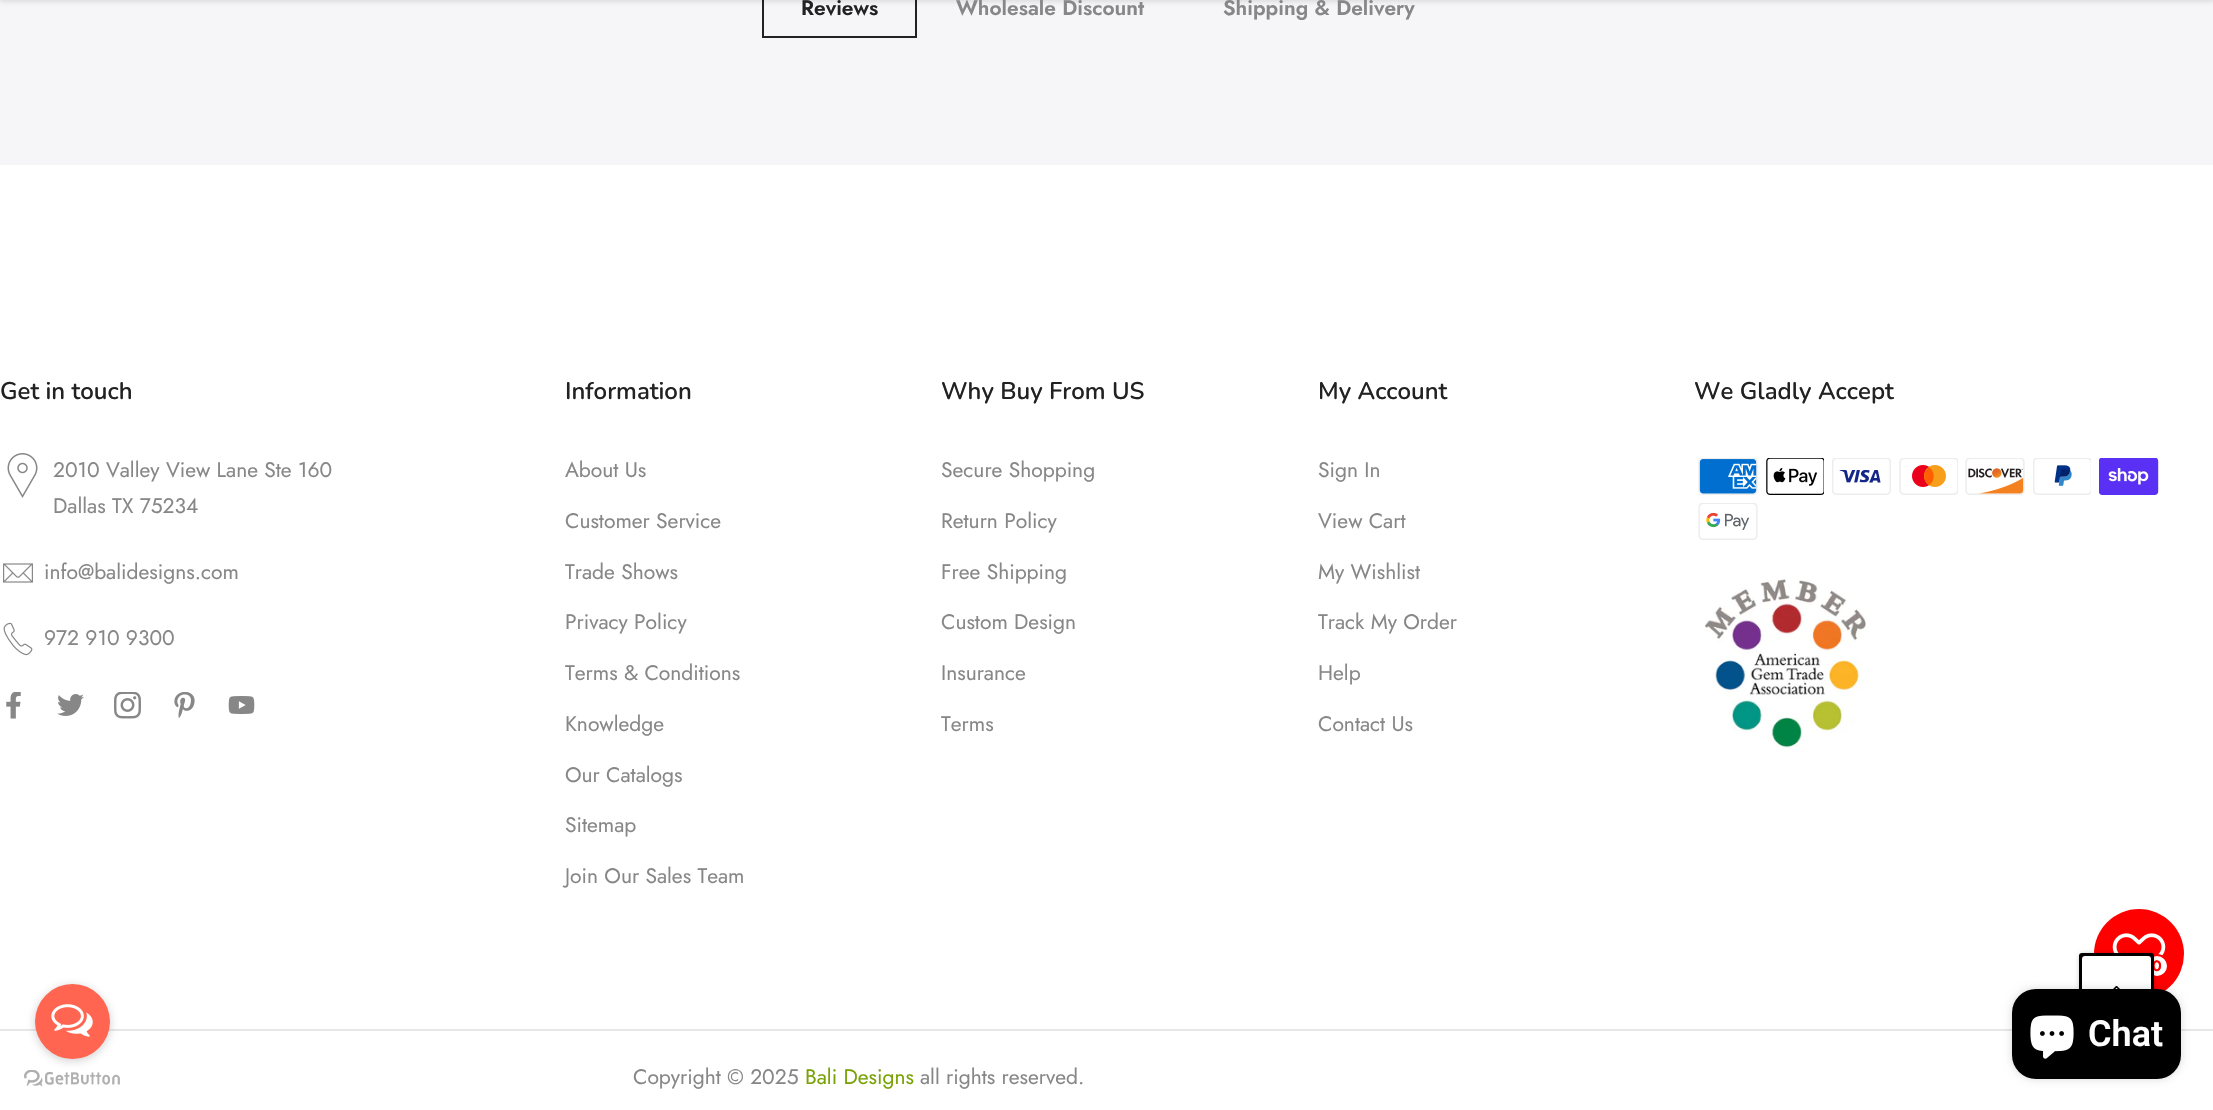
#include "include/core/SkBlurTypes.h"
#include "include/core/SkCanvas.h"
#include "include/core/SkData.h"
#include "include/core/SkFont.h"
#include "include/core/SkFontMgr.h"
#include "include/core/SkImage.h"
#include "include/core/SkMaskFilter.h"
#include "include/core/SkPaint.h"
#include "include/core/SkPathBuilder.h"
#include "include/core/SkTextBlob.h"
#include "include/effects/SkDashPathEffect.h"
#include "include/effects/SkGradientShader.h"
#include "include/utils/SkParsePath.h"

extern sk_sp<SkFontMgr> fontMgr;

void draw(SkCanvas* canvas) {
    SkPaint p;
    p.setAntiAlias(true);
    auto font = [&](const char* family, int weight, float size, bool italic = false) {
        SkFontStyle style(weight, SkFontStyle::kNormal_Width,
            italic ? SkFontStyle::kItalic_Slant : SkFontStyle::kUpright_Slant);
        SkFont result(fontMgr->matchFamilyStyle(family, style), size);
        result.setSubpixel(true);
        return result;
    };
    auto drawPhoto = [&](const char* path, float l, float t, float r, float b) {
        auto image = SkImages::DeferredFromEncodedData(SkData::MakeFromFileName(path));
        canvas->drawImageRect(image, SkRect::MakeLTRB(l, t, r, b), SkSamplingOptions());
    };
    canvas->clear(0xFFFFFFFF);
    p.setColor(0xFFF6F6F8);
    canvas->drawRect(SkRect::MakeLTRB(0, 0, 2213, 165), p);
    p.setStyle(SkPaint::kStroke_Style);
    p.setStrokeWidth(2);
    p.setColor(0xFF222222);
    canvas->drawRect(SkRect::MakeLTRB(763, -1, 916, 37), p);
    p.setStyle(SkPaint::kFill_Style);
    p.setColor(0x1A000000);
    p.setMaskFilter(SkMaskFilter::MakeBlur(kNormal_SkBlurStyle, 2));
    canvas->drawRect(SkRect::MakeLTRB(0, -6, 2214, 2), p);
    p.setMaskFilter(nullptr);
    auto font1 = font("Jost", 600, 21);
    p.setColor(0xFF222222);
    canvas->drawString("Reviews", 801, 15, font1, p);
    p.setColor(0xFF878787);
    canvas->drawString("Wholesale Discount", 956, 15, font1, p);
    canvas->drawString("Shipping & Delivery", 1223, 15, font1, p);
    auto font2 = font("Nunito", 600, 24);
    p.setColor(0xFF222222);
    canvas->drawString("Get in touch", 0, 399, font2, p);
    drawPhoto("media/1.png", 7, 453, 38, 498);
    auto font3 = font("Jost", 400, 21);
    p.setColor(0xFF878787);
    canvas->drawString("2010 Valley View Lane Ste 160", 53, 477, font3, p);
    canvas->drawString("Dallas TX 75234", 53, 513, font3, p);
    drawPhoto("media/2.png", 3, 563, 33, 583);
    canvas->drawString("info@balidesigns.com", 44, 579, font3, p);
    drawPhoto("media/3.png", 3, 622, 33, 656);
    canvas->drawString("972 910 9300", 44, 645, font3, p);
    drawPhoto("media/4.png", 6, 692, 21, 719);
    drawPhoto("media/5.png", 57, 694, 84, 716);
    drawPhoto("media/6.png", 114, 692, 141, 719);
    drawPhoto("media/7.png", 174, 692, 195, 718);
    drawPhoto("media/8.png", 228, 696, 255, 714);
    p.setColor(0xFF222222);
    canvas->drawString("Information", 565, 399, font2, p);
    p.setColor(0xFF878787);
    {
        const struct { const char* s; float x, y; } items[] = {
            {"About Us", 565, 477},
            {"Customer Service", 565, 528},
            {"Trade Shows", 565, 579},
            {"Privacy Policy", 565, 629},
            {"Terms & Conditions", 565, 680},
            {"Knowledge", 565, 731},
            {"Our Catalogs", 565, 782},
            {"Sitemap", 565, 832},
            {"Join Our Sales Team", 565, 883},
        };
        for (auto [s, x, y] : items) {
            canvas->drawString(s, x, y, font3, p);
        }
    }
    p.setColor(0xFF222222);
    canvas->drawString("Why Buy From US", 941, 399, font2, p);
    p.setColor(0xFF878787);
    {
        const struct { const char* s; float x, y; } items[] = {
            {"Secure Shopping", 941, 477},
            {"Return Policy", 941, 528},
            {"Free Shipping", 941, 579},
            {"Custom Design", 941, 629},
            {"Insurance", 941, 680},
            {"Terms", 941, 731},
        };
        for (auto [s, x, y] : items) {
            canvas->drawString(s, x, y, font3, p);
        }
    }
    p.setColor(0xFF222222);
    canvas->drawString("My Account", 1318, 399, font2, p);
    p.setColor(0xFF878787);
    {
        const struct { const char* s; float x, y; } items[] = {
            {"Sign In", 1318, 477},
            {"View Cart", 1318, 528},
            {"My Wishlist", 1318, 579},
            {"Track My Order", 1318, 629},
            {"Help", 1318, 680},
            {"Contact Us", 1318, 731},
        };
        for (auto [s, x, y] : items) {
            canvas->drawString(s, x, y, font3, p);
        }
    }
    p.setColor(0xFF222222);
    canvas->drawString("We Gladly Accept", 1694, 399, font2, p);
    drawPhoto("media/9.png", 1698, 458, 1758, 495);
    drawPhoto("media/10.png", 1766, 458, 1824, 495);
    drawPhoto("media/11.png", 1832, 458, 1891, 495);
    drawPhoto("media/12.png", 1899, 458, 1958, 495);
    drawPhoto("media/13.png", 1965, 458, 2025, 495);
    drawPhoto("media/14.png", 2033, 458, 2091, 495);
    drawPhoto("media/15.png", 2099, 458, 2159, 495);
    drawPhoto("media/16.png", 1698, 503, 1758, 540);
    drawPhoto("media/17.png", 1704, 579, 1866, 749);
    p.setColor(0xFFE6E6E6);
    canvas->drawRect(SkRect::MakeLTRB(0, 1029, 2213, 1031), p);
    p.setColor(0xFF878787);
    canvas->drawString("Copyright © 2025", 633, 1084, font3, p);
    p.setColor(0xFF79A206);
    canvas->drawString("Bali Designs", 805, 1084, font3, p);
    p.setColor(0xFF878787);
    canvas->drawString("all rights reserved.", 920, 1084, font3, p);
    p.setColor(0xFFFF0000);
    canvas->drawCircle(2139, 954, 45, p);
    drawPhoto("media/19.png", 2112, 933, 2166, 956);
    p.setColor(0xFFFFFFFF);
    canvas->drawCircle(2157, 966, 11, p);
    p.setStyle(SkPaint::kStroke_Style);
    p.setColor(0xFFFF0000);
    canvas->drawCircle(2157, 966, 11, p);
    p.setStyle(SkPaint::kFill_Style);
    p.setColor(0x33000000);
    p.setMaskFilter(SkMaskFilter::MakeBlur(kNormal_SkBlurStyle, 2));
    canvas->drawRoundRect(SkRect::MakeLTRB(2079, 953, 2154, 1028), 5, 5, p);
    p.setMaskFilter(nullptr);
    auto font4 = font("Jost", 600, 15);
    p.setColor(0xFFFF0000);
    canvas->drawString("0", 2152, 971, font4, p);
    p.setColor(0xFF000000);
    canvas->drawPath(SkPathBuilder().moveTo(2082, 953).cubicTo(2080, 953, 2079, 954, 2079, 956).lineTo(2079, 1025).cubicTo(2079, 1027, 2080, 1028, 2082, 1028).lineTo(2151, 1028).cubicTo(2153, 1028, 2154, 1027, 2154, 1025).lineTo(2154, 956).cubicTo(2154, 954, 2153, 953, 2151, 953).close().detach(), p);
    p.setColor(0xFFFFFFFF);
    canvas->drawRoundRect(SkRect::MakeLTRB(2082, 956, 2151, 1025), 3, 3, p);
    drawPhoto("media/18.png", 2113, 986, 2120, 989);
    drawPhoto("media/21.png", 24, 1070, 120, 1086);
    p.setColor(0x66888888);
    p.setMaskFilter(SkMaskFilter::MakeBlur(kNormal_SkBlurStyle, 5));
    canvas->drawRoundRect(SkRect::MakeLTRB(35, 986, 110, 1061), 37.5f, 37.5f, p);
    p.setMaskFilter(nullptr);
    p.setColor(0xFFFF6550);
    canvas->drawCircle(72.5f, 1021.5f, 37.5f, p);
    drawPhoto("media/20.png", 51, 1004, 93, 1037);
    p.setColor(0x26000000);
    p.setMaskFilter(SkMaskFilter::MakeBlur(kNormal_SkBlurStyle, 4));
    canvas->drawRoundRect(SkRect::MakeLTRB(2012, 989, 2181, 1079), 24, 24, p);
    p.setMaskFilter(nullptr);
    p.setColor(0xFF000000);
    canvas->drawRoundRect(SkRect::MakeLTRB(2012, 989, 2181, 1079), 24, 24, p);
    drawPhoto("media/22.png", 2030, 1015, 2074, 1059);
    auto font5 = font("Roboto", 600, 36);
    p.setColor(0xFFFFFFFF);
    canvas->drawString("Chat", 2088, 1046, font5, p);
}
